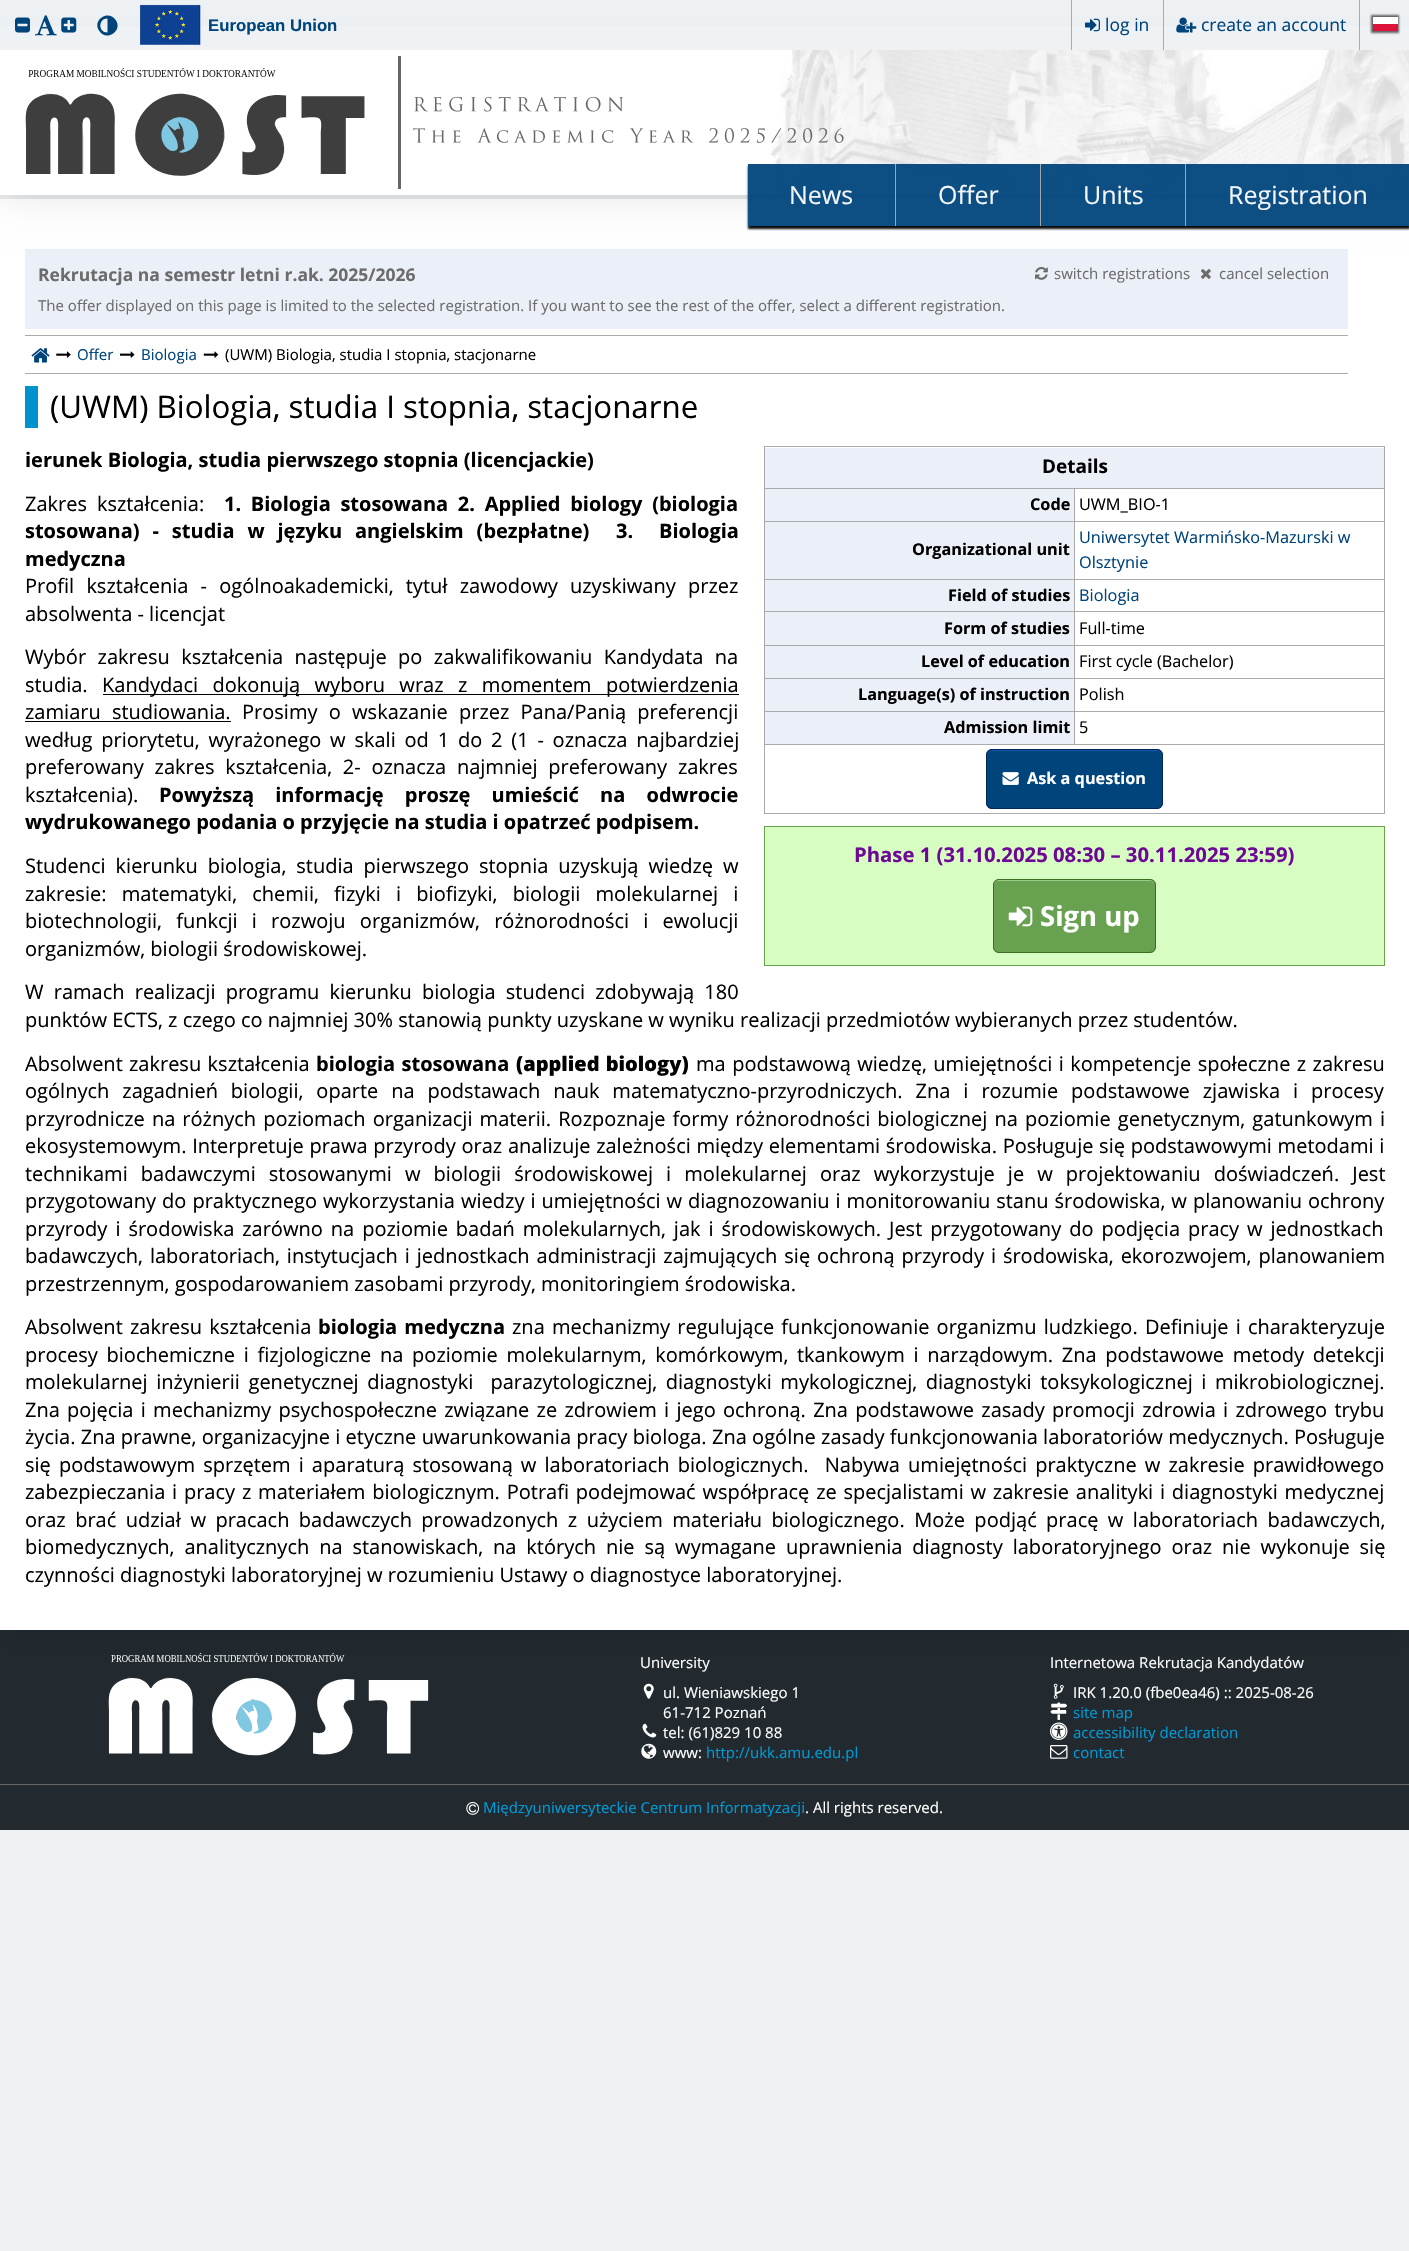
#include "include/core/SkBlurTypes.h"
#include "include/core/SkCanvas.h"
#include "include/core/SkData.h"
#include "include/core/SkFont.h"
#include "include/core/SkFontMgr.h"
#include "include/core/SkImage.h"
#include "include/core/SkMaskFilter.h"
#include "include/core/SkPaint.h"
#include "include/core/SkPathBuilder.h"
#include "include/core/SkTextBlob.h"
#include "include/effects/SkDashPathEffect.h"
#include "include/effects/SkGradientShader.h"
#include "include/utils/SkParsePath.h"

extern sk_sp<SkFontMgr> fontMgr;

void draw(SkCanvas* canvas) {
    SkPaint p;
    p.setAntiAlias(true);
    auto font = [&](const char* family, int weight, float size, bool italic = false) {
        SkFontStyle style(weight, SkFontStyle::kNormal_Width,
            italic ? SkFontStyle::kItalic_Slant : SkFontStyle::kUpright_Slant);
        SkFont result(fontMgr->matchFamilyStyle(family, style), size);
        result.setSubpixel(true);
        return result;
    };
    auto drawTracked = [&](const char* s, float x, float y, const SkFont& font, const SkPaint& ink, float letter, float word) {
        std::vector<SkGlyphID> glyphs(font.countText(s, strlen(s), SkTextEncoding::kUTF8));
        std::vector<float> xs(glyphs.size());
        font.textToGlyphs(s, strlen(s), SkTextEncoding::kUTF8, glyphs);
        font.getXPos(glyphs, xs, x);
        float extra = 0;
        for (size_t i = 0; i < glyphs.size(); i++) {
            xs[i] += extra;
            extra += letter + word * (glyphs[i] == font.unicharToGlyph(' '));
        }
        canvas->drawTextBlob(SkTextBlob::MakeFromPosHGlyphs(glyphs, xs, y, font), 0, 0, ink);
    };
    auto drawPhoto = [&](const char* path, float l, float t, float r, float b) {
        auto image = SkImages::DeferredFromEncodedData(SkData::MakeFromFileName(path));
        canvas->drawImageRect(image, SkRect::MakeLTRB(l, t, r, b), SkSamplingOptions());
    };
    canvas->clear(0xFFEFF2F4);
    p.setColor(0xFF222A2F);
    canvas->drawRect(SkRect::MakeLTRB(0, 1630, 1409, 1830), p);
    drawPhoto("media/19.png", 108, 1653, 429, 1756);
    drawPhoto("media/20.png", 643, 1683, 654, 1699);
    drawPhoto("media/23.png", 1053, 1683, 1064, 1699);
    p.setColor(0x1A000000);
    p.setMaskFilter(SkMaskFilter::MakeBlur(kNormal_SkBlurStyle, 19));
    canvas->drawRect(SkRect::MakeLTRB(0, 199, 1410, 1630), p);
    p.setMaskFilter(nullptr);
    p.setColor(0xFFFFFFFF);
    canvas->drawRect(SkRect::MakeLTRB(0, 199, 1409, 1630), p);
    p.setColor(0xFFEBEFF7);
    canvas->drawRect(SkRect::MakeLTRB(25, 249, 1348, 329), p);
    p.setColor(0x1A000000);
    p.setMaskFilter(SkMaskFilter::MakeBlur(kNormal_SkBlurStyle, 19));
    canvas->drawRect(SkRect::MakeLTRB(0, 50, 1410, 195), p);
    p.setMaskFilter(nullptr);
    p.setColor(0xFFFFFFFF);
    canvas->drawRect(SkRect::MakeLTRB(0, 50, 766, 195), p);
    drawPhoto("media/1.png", 766, 50, 1409, 195);
    p.setColor(0xFF666666);
    canvas->drawRect(SkRect::MakeLTRB(398, 56, 401, 189), p);
    drawPhoto("media/2.png", 25, 68, 365, 176);
    drawPhoto("media/3.png", 414, 96, 623, 112);
    drawPhoto("media/4.png", 413, 128, 844, 143);
    p.setColor(0xFFEFF2F4);
    canvas->drawRect(SkRect::MakeLTRB(0, 26, 1409, 50), p);
    drawPhoto("media/5.png", 15, 17, 30, 33);
    drawPhoto("media/6.png", 35, 15, 57, 36);
    drawPhoto("media/7.png", 61, 17, 77, 33);
    p.setColor(0xFF00447C);
    canvas->drawPath(SkPathBuilder().moveTo(107.5f, 32.5f).lineTo(107.5f, 18.5f).cubicTo(98, 18.5f, 98, 32.5f, 107.5f, 32.5f).close().moveTo(116, 20.5f).cubicTo(123, 31.5f, 105.5f, 42, 99, 30.5f).cubicTo(92, 19, 109.5f, 9, 116, 20.5f).close().detach(), p);
    drawPhoto("media/8.png", 140, 4, 201, 45);
    auto font1 = font("Liberation Sans", 700, 16.75f);
    canvas->drawString("European Union", 208, 31, font1, p);
    p.setColor(0xFFAAAAAA);
    canvas->drawRect(SkRect::MakeLTRB(1163, 0, 1164, 50), p);
    canvas->drawRect(SkRect::MakeLTRB(1071, 0, 1072, 50), p);
    drawPhoto("media/9.png", 1085, 18, 1100, 32);
    auto font2 = font("Open Sans", 400, 17.5f);
    p.setColor(0xFF00447C);
    canvas->drawString("log in", 1105, 31, font2, p);
    p.setColor(0xFFAAAAAA);
    canvas->drawRect(SkRect::MakeLTRB(1359, 0, 1360, 50), p);
    drawPhoto("media/10.png", 1176, 17, 1197, 33);
    p.setColor(0xFF00447C);
    canvas->drawString("create an account", 1201, 31, font2, p);
    p.setColor(0x99000000);
    p.setMaskFilter(SkMaskFilter::MakeBlur(kNormal_SkBlurStyle, 1));
    canvas->drawRect(SkRect::MakeLTRB(1371, 15, 1399, 33), p);
    p.setMaskFilter(nullptr);
    p.setColor(0xFFFFFFFF);
    canvas->drawRect(SkRect::MakeLTRB(1373, 17, 1398, 24), p);
    p.setColor(0xFFDC143C);
    canvas->drawRect(SkRect::MakeLTRB(1373, 24, 1398, 31), p);
    canvas->save();
    canvas->clipPath(SkPathBuilder(SkPathFillType::kEvenOdd).moveTo(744, 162).lineTo(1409, 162).lineTo(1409, 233).lineTo(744, 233).close().moveTo(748, 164).lineTo(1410, 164).lineTo(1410, 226).lineTo(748, 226).close().detach(), true);
    p.setColor(0xF2000000);
    p.setMaskFilter(SkMaskFilter::MakeBlur(kNormal_SkBlurStyle, 1));
    canvas->drawRect(SkRect::MakeLTRB(748, 166, 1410, 229), p);
    p.setMaskFilter(nullptr);
    canvas->restore();
    p.setColor(0xF200447C);
    canvas->drawRect(SkRect::MakeLTRB(748, 164, 1409, 226), p);
    p.setColor(0xFFA2A5A8);
    canvas->drawRect(SkRect::MakeLTRB(895, 164, 896, 226), p);
    auto font3 = font("Open Sans", 400, 25);
    p.setColor(0xFFF3F6F9);
    canvas->drawString("News", 789, 204, font3, p);
    p.setColor(0xFFA2A5A8);
    canvas->drawRect(SkRect::MakeLTRB(1040, 164, 1041, 226), p);
    p.setColor(0xFFF3F6F9);
    canvas->drawString("Offer", 938, 204, font3, p);
    p.setColor(0xFFA2A5A8);
    canvas->drawRect(SkRect::MakeLTRB(1185, 164, 1186, 226), p);
    p.setColor(0xFFF3F6F9);
    canvas->drawString("Units", 1083, 204, font3, p);
    canvas->drawString("Registration", 1228, 204, font3, p);
    auto font4 = font("Open Sans", 700, 17.5f);
    p.setColor(0xFF6C6C6C);
    canvas->drawString("Rekrutacja na semestr letni r.ak. 2025/2026", 38, 281, font4, p);
    drawPhoto("media/11.png", 1035, 267, 1048, 280);
    auto font5 = font("Open Sans", 400, 15);
    canvas->drawString("switch registrations", 1054, 279, font5, p);
    drawPhoto("media/12.png", 1201, 269, 1211, 279);
    canvas->drawString("cancel selection", 1219, 279, font5, p);
    canvas->drawString("The offer displayed on this page is limited to the selected registration. If you want to see the rest of the offer, select a different registration.", 38, 311, font5, p);
    p.setColor(0xFFAAAAAA);
    canvas->drawRect(SkRect::MakeLTRB(25, 335, 1348, 336), p);
    canvas->drawRect(SkRect::MakeLTRB(25, 373, 1348, 374), p);
    drawPhoto("media/13.png", 31, 348, 50, 363);
    drawPhoto("media/14.png", 56, 351, 71, 358);
    p.setColor(0xFF00447C);
    canvas->drawString("Offer", 77, 360, font5, p);
    drawPhoto("media/15.png", 120, 351, 135, 358);
    canvas->drawString("Biologia", 141, 360, font5, p);
    drawPhoto("media/16.png", 203, 351, 219, 358);
    p.setColor(0xFF000000);
    canvas->drawString("(UWM) Biologia, studia I stopnia, stacjonarne", 225, 360, font5, p);
    p.setColor(0xFF0092CE);
    canvas->drawRect(SkRect::MakeLTRB(25, 386, 38, 428), p);
    auto font6 = font("Open Sans", 400, 31.25f);
    p.setColor(0xFF000000);
    canvas->drawString("(UWM) Biologia, studia I stopnia, stacjonarne", 50, 418, font6, p);
    auto font7 = font("Open Sans", 700, 20);
    canvas->drawString("ierunek Biologia, studia pierwszego stopnia (licencjackie)", 25, 467, font7, p);
    auto font8 = font("Open Sans", 400, 20);
    drawTracked("Zakres kształcenia:", 25, 511, font8, p, 0, 4.75f);
    drawTracked("1. Biologia stosowana 2. Applied biology (biologia", 224, 511, font7, p, 0, 4.5f);
    drawTracked("stosowana) - studia w języku angielskim (bezpłatne)", 25, 538, font7, p, 0, 7.75f);
    drawTracked("3.  Biologia", 616, 538, font7, p, 0, 7.75f);
    canvas->drawString("medyczna", 25, 566, font7, p);
    drawTracked("Profil kształcenia - ogólnoakademicki, tytuł zawodowy uzyskiwany przez", 25, 593, font8, p, 0, 7);
    canvas->drawString("absolwenta - licencjat", 25, 621, font8, p);
    drawTracked("Wybór zakresu kształcenia następuje po zakwalifikowaniu Kandydata na", 25, 664, font8, p, 0, 6.25f);
    canvas->drawString("studia.", 25, 692, font8, p);
    canvas->drawRect(SkRect::MakeLTRB(103, 694, 739, 695), p);
    drawTracked("Kandydaci dokonują wyboru wraz z momentem potwierdzenia", 102, 692, font8, p, 0, 9.25f);
    drawTracked("zamiaru studiowania.", 25, 719, font8, p, 0, 6);
    canvas->drawRect(SkRect::MakeLTRB(25, 721, 231, 722), p);
    drawTracked("Prosimy o wskazanie przez Pana/Panią preferencji", 242, 719, font8, p, 0, 6);
    drawTracked("według priorytetu, wyrażonego w skali od 1 do 2 (1 - oznacza najbardziej", 25, 747, font8, p, 0, 3.6f);
    drawTracked("preferowany zakres kształcenia, 2- oznacza najmniej preferowany zakres", 25, 774, font8, p, 0, 5.5f);
    canvas->drawString("kształcenia).", 25, 802, font8, p);
    drawTracked("Powyższą informację proszę umieścić na odwrocie", 159, 802, font7, p, 0, 16);
    canvas->drawString("wydrukowanego podania o przyjęcie na studia i opatrzeć podpisem.", 25, 829, font7, p);
    drawTracked("Studenci kierunku biologia, studia pierwszego stopnia uzyskują wiedzę w", 25, 873, font8, p, 0, 4.75f);
    drawTracked("zakresie: matematyki, chemii, fizyki i biofizyki, biologii molekularnej i", 25, 901, font8, p, 0, 10);
    drawTracked("biotechnologii, funkcji i rozwoju organizmów, różnorodności i ewolucji", 25, 928, font8, p, 0, 9);
    canvas->drawString("organizmów, biologii środowiskowej.", 25, 956, font8, p);
    drawTracked("W ramach realizacji programu kierunku biologia studenci zdobywają 180", 25, 999, font8, p, 0, 5);
    canvas->drawString("punktów ECTS, z czego co najmniej 30% stanowią punkty uzyskane w wyniku realizacji przedmiotów wybieranych przez studentów.", 25, 1027, font8, p);
    canvas->drawString("Absolwent", 25, 1071, font8, p);
    drawTracked("zakresu kształcenia", 129, 1071, font8, p, 0, 1.25f);
    drawTracked("biologia stosowana", 316, 1071, font7, p, 0, 1.25f);
    auto font9 = font("Open Sans", 800, 20);
    drawTracked("(applied biology)", 516, 1071, font9, p, 0, 1);
    drawTracked("ma podstawową wiedzę, umiejętności i kompetencje społeczne z zakresu", 696, 1071, font8, p, 0, 1.25f);
    drawTracked("ogólnych zagadnień biologii, oparte na podstawach nauk matematyczno-przyrodniczych. Zna i rozumie podstawowe zjawiska i procesy", 25, 1098, font8, p, 0, 7.75f);
    drawTracked("przyrodnicze na różnych poziomach organizacji materii. Rozpoznaje formy różnorodności biologicznej na poziomie genetycznym, gatunkowym i", 25, 1126, font8, p, 0, 1.9f);
    drawTracked("ekosystemowym. Interpretuje prawa przyrody oraz analizuje zależności między elementami środowiska. Posługuje się podstawowymi metodami i", 25, 1153, font8, p, 0, 0.5f);
    drawTracked("technikami badawczymi stosowanymi w biologii środowiskowej i molekularnej oraz wykorzystuje je w projektowaniu doświadczeń. Jest", 25, 1181, font8, p, 0, 7.9f);
    drawTracked("przygotowany do praktycznego wykorzystania wiedzy i umiejętności w diagnozowaniu i monitorowaniu stanu środowiska, w planowaniu ochrony", 25, 1208, font8, p, 0, 0.8f);
    drawTracked("przyrody i środowiska zarówno na poziomie badań molekularnych, jak i środowiskowych. Jest przygotowany do podjęcia pracy w jednostkach", 25, 1236, font8, p, 0, 2.75f);
    drawTracked("badawczych, laboratoriach, instytucjach i jednostkach administracji zajmujących się ochroną przyrody i środowiska, ekorozwojem, planowaniem", 25, 1263, font8, p, 0, 1.75f);
    canvas->drawString("przestrzennym, gospodarowaniem zasobami przyrody, monitoringiem środowiska.", 25, 1291, font8, p);
    drawTracked("Absolwent zakresu kształcenia", 25, 1334, font8, p, 0, 2);
    drawTracked("biologia medyczna", 318, 1334, font7, p, 0, 2);
    drawTracked("zna mechanizmy regulujące funkcjonowanie organizmu ludzkiego. Definiuje i charakteryzuje", 512, 1334, font8, p, 0, 2);
    drawTracked("procesy biochemiczne i fizjologiczne na poziomie molekularnym, komórkowym, tkankowym i narządowym. Zna podstawowe metody detekcji", 25, 1362, font8, p, 0, 3.5f);
    drawTracked("molekularnej inżynierii genetycznej diagnostyki  parazytologicznej, diagnostyki mykologicznej, diagnostyki toksykologicznej i mikrobiologicznej.", 25, 1389, font8, p, 0, 3.4f);
    drawTracked("Zna pojęcia i mechanizmy psychospołeczne związane ze zdrowiem i jego ochroną. Zna podstawowe zasady promocji zdrowia i zdrowego trybu", 25, 1417, font8, p, 0, 2.1f);
    drawTracked("życia. Zna prawne, organizacyjne i etyczne uwarunkowania pracy biologa. Zna ogólne zasady funkcjonowania laboratoriów medycznych. Posługuje", 25, 1444, font8, p, 0, 0.1f);
    drawTracked("się podstawowym sprzętem i aparaturą stosowaną w laboratoriach biologicznych.  Nabywa umiejętności praktyczne w zakresie prawidłowego", 25, 1472, font8, p, 0, 2.9f);
    drawTracked("zabezpieczania i pracy z materiałem biologicznym. Potrafi podejmować współpracę ze specjalistami w zakresie analityki i diagnostyki medycznej", 25, 1499, font8, p, 0, 1.6f);
    drawTracked("oraz brać udział w pracach badawczych prowadzonych z użyciem materiału biologicznego. Może podjąć pracę w laboratoriach badawczych,", 25, 1527, font8, p, 0, 4.25f);
    drawTracked("biomedycznych, analitycznych na stanowiskach, na których nie są wymagane uprawnienia diagnosty laboratoryjnego oraz nie wykonuje się", 25, 1554, font8, p, 0, 4.75f);
    canvas->drawString("czynności diagnostyki laboratoryjnej w rozumieniu Ustawy o diagnostyce laboratoryjnej.", 25, 1582, font8, p);
    {
        const struct { float l, t, r, b; SkColor color; } items[] = {
            {765, 448, 1384, 488, 0xFFEBEFF7},
            {764, 446, 1385, 447, 0xFFAAAAAA},
            {1384, 446, 1385, 488, 0xFFAAAAAA},
            {764, 446, 765, 488, 0xFFAAAAAA},
        };
        for (auto [l, t, r, b, color] : items) {
            p.setColor(color);
            canvas->drawRect(SkRect::MakeLTRB(l, t, r, b), p);
        }
    }
    auto font10 = font("Open Sans", 700, 19);
    p.setColor(0xFF000000);
    canvas->drawString("Details", 1042, 473, font10, p);
    {
        const struct { float l, t, r, b; SkColor color; } items[] = {
            {765, 489, 1074, 521, 0xFFEBEFF7},
            {1074, 488, 1385, 489, 0xFFAAAAAA},
            {1074, 521, 1385, 522, 0xFFAAAAAA},
            {1074, 579, 1385, 580, 0xFFAAAAAA},
            {765, 580, 1074, 645, 0xFFEBEFF7},
            {1074, 611, 1385, 612, 0xFFAAAAAA},
            {1074, 645, 1385, 646, 0xFFAAAAAA},
            {1074, 678, 1385, 679, 0xFFAAAAAA},
            {1074, 711, 1385, 712, 0xFFAAAAAA},
            {764, 744, 1385, 745, 0xFFAAAAAA},
            {1074, 711, 1075, 745, 0xFFAAAAAA},
            {764, 711, 1075, 712, 0xFFAAAAAA},
            {1074, 678, 1075, 713, 0xFFAAAAAA},
            {764, 678, 1075, 679, 0xFFAAAAAA},
            {1074, 645, 1075, 679, 0xFFAAAAAA},
            {764, 645, 1075, 646, 0xFFAAAAAA},
            {1074, 611, 1075, 646, 0xFFAAAAAA},
            {764, 611, 1075, 612, 0xFFAAAAAA},
            {1074, 579, 1075, 613, 0xFFAAAAAA},
            {764, 579, 1075, 580, 0xFFAAAAAA},
            {1074, 521, 1075, 580, 0xFFAAAAAA},
            {764, 521, 1075, 522, 0xFFAAAAAA},
            {1074, 488, 1075, 523, 0xFFAAAAAA},
            {764, 488, 1075, 489, 0xFFAAAAAA},
            {1384, 744, 1385, 814, 0xFFAAAAAA},
            {764, 813, 1385, 814, 0xFFAAAAAA},
            {764, 744, 765, 814, 0xFFAAAAAA},
            {764, 711, 765, 745, 0xFFAAAAAA},
            {764, 678, 765, 713, 0xFFAAAAAA},
            {764, 645, 765, 679, 0xFFAAAAAA},
            {764, 611, 765, 646, 0xFFAAAAAA},
            {764, 579, 765, 613, 0xFFAAAAAA},
            {764, 521, 765, 580, 0xFFAAAAAA},
            {764, 488, 765, 523, 0xFFAAAAAA},
        };
        for (auto [l, t, r, b, color] : items) {
            p.setColor(color);
            canvas->drawRect(SkRect::MakeLTRB(l, t, r, b), p);
        }
    }
    auto font11 = font("Open Sans", 700, 16.25f);
    p.setColor(0xFF000000);
    canvas->drawString("Code", 1030, 510, font11, p);
    {
        const struct { float l, t, r, b; SkColor color; } items[] = {
            {1384, 711, 1385, 745, 0xFFAAAAAA},
            {1384, 678, 1385, 713, 0xFFAAAAAA},
            {1384, 645, 1385, 679, 0xFFAAAAAA},
            {1384, 611, 1385, 646, 0xFFAAAAAA},
            {1384, 579, 1385, 613, 0xFFAAAAAA},
            {1384, 521, 1385, 580, 0xFFAAAAAA},
            {1384, 488, 1385, 523, 0xFFAAAAAA},
        };
        for (auto [l, t, r, b, color] : items) {
            p.setColor(color);
            canvas->drawRect(SkRect::MakeLTRB(l, t, r, b), p);
        }
    }
    auto font12 = font("Open Sans", 400, 16.25f);
    p.setColor(0xFF000000);
    canvas->drawString("UWM_BIO-1", 1079, 510, font12, p);
    p.setColor(0xFFEBEFF7);
    canvas->drawRect(SkRect::MakeLTRB(765, 522, 1074, 579), p);
    p.setColor(0xFF000000);
    canvas->drawString("Organizational unit", 912, 555, font11, p);
    p.setColor(0xFF00447C);
    canvas->drawString("Uniwersytet Warmińsko-Mazurski w", 1079, 543, font12, p);
    canvas->drawString("Olsztynie", 1079, 568, font12, p);
    p.setColor(0xFF000000);
    canvas->drawString("Field of studies", 948, 601, font11, p);
    p.setColor(0xFF00447C);
    canvas->drawString("Biologia", 1079, 601, font12, p);
    p.setColor(0xFF000000);
    canvas->drawString("Form of studies", 944, 634, font11, p);
    canvas->drawString("Full-time", 1079, 634, font12, p);
    p.setColor(0xFFEBEFF7);
    canvas->drawRect(SkRect::MakeLTRB(765, 646, 1074, 678), p);
    p.setColor(0xFF000000);
    canvas->drawString("Level of education", 921, 667, font11, p);
    canvas->drawString("First cycle (Bachelor)", 1079, 667, font12, p);
    p.setColor(0xFFEBEFF7);
    canvas->drawRect(SkRect::MakeLTRB(765, 679, 1074, 711), p);
    p.setColor(0xFF000000);
    canvas->drawString("Language(s) of instruction", 858, 700, font11, p);
    canvas->drawString("Polish", 1079, 700, font12, p);
    p.setColor(0xFFEBEFF7);
    canvas->drawRect(SkRect::MakeLTRB(765, 712, 1074, 744), p);
    p.setColor(0xFF000000);
    canvas->drawString("Admission limit", 944, 733, font11, p);
    canvas->drawString("5", 1079, 733, font12, p);
    p.setColor(0xFF00447C);
    canvas->drawRoundRect(SkRect::MakeLTRB(986, 749, 1163, 809), 6, 6, p);
    p.setColor(0xFF1054AC);
    canvas->drawPath(SkPathBuilder().moveTo(992, 751).lineTo(1156, 751).cubicTo(1159, 751, 1161, 753, 1161, 756).cubicTo(1161, 753, 1160, 751, 1157, 750).lineTo(993, 750).cubicTo(990, 750, 988, 753, 988, 756).cubicTo(988, 753, 990, 751, 992, 751).close().detach(), p);
    p.setStyle(SkPaint::kStroke_Style);
    p.setStrokeWidth(1);
    p.setColor(0xFF00245C);
    canvas->drawRoundRect(SkRect::MakeLTRB(986.5f, 749.5f, 1162.5f, 808.5f), 5.5f, 5.5f, p);
    drawPhoto("media/17.png", 1002, 772, 1019, 785);
    p.setStyle(SkPaint::kFill_Style);
    p.setColor(0xFFFFFFFF);
    canvas->drawString("Ask a question", 1027, 784, font11, p);
    p.setColor(0xFFD8FDC3);
    canvas->drawRect(SkRect::MakeLTRB(764.5f, 826.5f, 1384.5f, 965.5f), p);
    p.setStyle(SkPaint::kStroke_Style);
    p.setColor(0xFF68A54B);
    canvas->drawRect(SkRect::MakeLTRB(764.5f, 826.5f, 1384.5f, 965.5f), p);
    auto font13 = font("Open Sans", 700, 20.3f);
    p.setStyle(SkPaint::kFill_Style);
    p.setColor(0xFF6D0896);
    canvas->drawString("Phase 1 (31.10.2025 08:30 – 30.11.2025 23:59)", 854, 862, font13, p);
    p.setColor(0xFF68A14F);
    canvas->drawRoundRect(SkRect::MakeLTRB(993, 879, 1156, 953), 6, 6, p);
    p.setColor(0xFF9ACC85);
    canvas->drawPath(SkPathBuilder().moveTo(999, 881).lineTo(1150, 881).cubicTo(1153, 881, 1155, 883, 1155, 886).lineTo(1155, 885).cubicTo(1155, 882, 1153, 880, 1150, 880).lineTo(999, 880).cubicTo(996, 880, 994, 882, 994, 885).lineTo(994, 886).cubicTo(994, 883, 996, 881, 999, 881).close().detach(), p);
    p.setStyle(SkPaint::kStroke_Style);
    p.setColor(0xFF3B6E22);
    canvas->drawRoundRect(SkRect::MakeLTRB(993.5f, 879.5f, 1155.5f, 952.5f), 5.5f, 5.5f, p);
    drawPhoto("media/18.png", 1008, 906, 1033, 927);
    auto font14 = font("Open Sans", 700, 27.5f);
    p.setStyle(SkPaint::kFill_Style);
    p.setColor(0xFFFFFFFF);
    canvas->drawString("Sign up", 1040, 926, font14, p);
    {
        const struct { const char* s; float x, y; } items[] = {
            {"University", 640, 1668},
            {"ul. Wieniawskiego 1", 663, 1698},
            {"61-712 Poznań", 663, 1718},
        };
        for (auto [s, x, y] : items) {
            canvas->drawString(s, x, y, font5, p);
        }
    }
    drawPhoto("media/21.png", 642, 1723, 657, 1738);
    canvas->drawString("tel: (61)829 10 88", 663, 1738, font5, p);
    drawPhoto("media/22.png", 641, 1743, 657, 1759);
    canvas->drawString("www:", 663, 1758, font5, p);
    p.setColor(0xFF009AD6);
    canvas->drawString("http://ukk.amu.edu.pl", 706, 1758, font5, p);
    p.setColor(0xFFFFFFFF);
    canvas->drawString("Internetowa Rekrutacja Kandydatów", 1050, 1668, font5, p);
    canvas->drawString("IRK 1.20.0 (fbe0ea46) :: 2025-08-26", 1073, 1698, font5, p);
    drawPhoto("media/24.png", 1050, 1702, 1068, 1720);
    p.setColor(0xFF009AD6);
    canvas->drawString("site map", 1073, 1718, font5, p);
    drawPhoto("media/25.png", 1050, 1722, 1068, 1740);
    canvas->drawString("accessibility declaration", 1073, 1738, font5, p);
    drawPhoto("media/26.png", 1050, 1745, 1068, 1759);
    canvas->drawString("contact", 1073, 1758, font5, p);
    p.setColor(0xFF666666);
    canvas->drawRect(SkRect::MakeLTRB(0, 1784, 1409, 1785), p);
    drawPhoto("media/27.png", 466, 1802, 480, 1815);
    p.setColor(0xFF009AD6);
    canvas->drawString("Międzyuniwersyteckie Centrum Informatyzacji", 483, 1813, font5, p);
    p.setColor(0xFFFFFFFF);
    canvas->drawString(". All rights reserved.", 805, 1813, font5, p);
}
